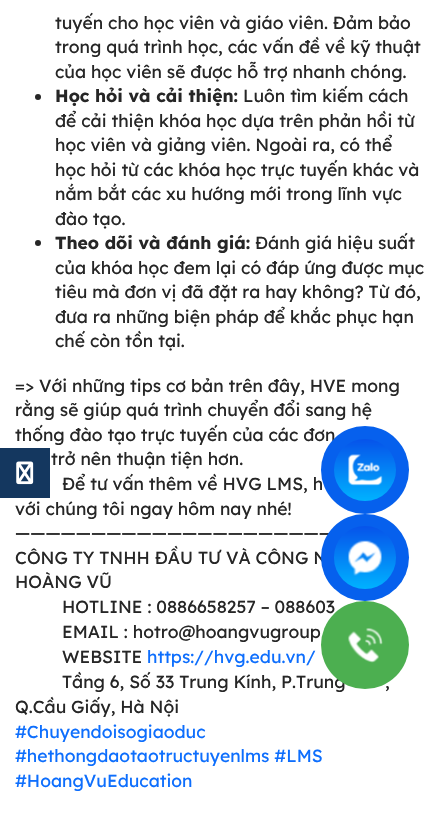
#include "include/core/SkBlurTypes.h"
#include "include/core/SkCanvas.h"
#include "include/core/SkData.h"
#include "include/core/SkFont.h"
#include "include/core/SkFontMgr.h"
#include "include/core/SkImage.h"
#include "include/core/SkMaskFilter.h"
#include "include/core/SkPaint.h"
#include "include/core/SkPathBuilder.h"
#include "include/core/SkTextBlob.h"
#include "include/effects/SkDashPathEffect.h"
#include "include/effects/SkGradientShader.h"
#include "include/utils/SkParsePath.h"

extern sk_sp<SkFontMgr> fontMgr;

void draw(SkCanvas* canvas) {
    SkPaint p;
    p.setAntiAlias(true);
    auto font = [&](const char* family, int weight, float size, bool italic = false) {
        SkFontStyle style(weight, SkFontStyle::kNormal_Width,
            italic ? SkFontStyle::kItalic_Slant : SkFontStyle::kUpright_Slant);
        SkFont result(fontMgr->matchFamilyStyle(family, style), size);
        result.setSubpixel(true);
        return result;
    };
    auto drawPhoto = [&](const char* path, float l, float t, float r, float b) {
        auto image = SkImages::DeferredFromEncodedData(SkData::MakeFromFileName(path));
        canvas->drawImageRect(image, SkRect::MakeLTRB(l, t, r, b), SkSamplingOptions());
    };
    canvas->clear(0xFFFFFFFF);
    auto font1 = font("Lexend Deca", 400, 17.5f);
    p.setColor(0xFF262626);
    {
        const struct { const char* s; float x, y; } items[] = {
            {"tuyến cho học viên và giáo viên. Đảm bảo", 55, 29},
            {"trong quá trình học, các vấn đề về kỹ thuật", 55, 53},
            {"của học viên sẽ được hỗ trợ nhanh chóng.", 55, 78},
        };
        for (auto [s, x, y] : items) {
            canvas->drawString(s, x, y, font1, p);
        }
    }
    canvas->drawCircle(38, 97, 3, p);
    auto font2 = font("Lexend Deca", 700, 17.5f);
    canvas->drawString("Học hỏi và cải thiện:", 55, 102, font2, p);
    {
        const struct { const char* s; float x, y; } items[] = {
            {"Luôn tìm kiếm cách", 243, 102},
            {"để cải thiện khóa học dựa trên phản hồi từ", 55, 127},
            {"học viên và giảng viên. Ngoài ra, có thể", 55, 151},
            {"học hỏi từ các khóa học trực tuyến khác và", 55, 176},
            {"nắm bắt các xu hướng mới trong lĩnh vực", 55, 200},
            {"đào tạo.", 55, 225},
        };
        for (auto [s, x, y] : items) {
            canvas->drawString(s, x, y, font1, p);
        }
    }
    canvas->drawCircle(38, 243, 3, p);
    canvas->drawString("Theo dõi và đánh giá:", 55, 249, font2, p);
    {
        const struct { const char* s; float x, y; } items[] = {
            {"Đánh giá hiệu suất", 255, 249},
            {"của khóa học đem lại có đáp ứng được mục", 55, 274},
            {"tiêu mà đơn vị đã đặt ra hay không? Từ đó,", 55, 298},
            {"đưa ra những biện pháp để khắc phục hạn", 55, 323},
            {"chế còn tồn tại.", 55, 347},
            {"=> Với những tips cơ bản trên đây, HVE mong", 15, 392},
            {"rằng sẽ giúp quá trình chuyển đổi sang hệ", 15, 416},
            {"thống đào tạo trực tuyến của các đơn", 15, 441},
            {"trở nên thuận tiện hơn.", 51, 465},
            {"Để tư vấn thêm về HVG LMS, h", 62, 490},
            {"với chúng tôi ngay hôm nay nhé!", 15, 515},
            {"—————————————————————", 15, 539},
            {"CÔNG TY TNHH ĐẦU TƯ VÀ CÔNG N", 15, 564},
            {"HOÀNG VŨ", 15, 588},
            {"HOTLINE : 0886658257 – 088603", 62, 613},
            {"EMAIL : hotro@hoangvugroup", 62, 638},
            {"WEBSITE", 62, 663},
        };
        for (auto [s, x, y] : items) {
            canvas->drawString(s, x, y, font1, p);
        }
    }
    p.setColor(0xFF0D6EFD);
    canvas->drawString("https://hvg.edu.vn/", 147, 663, font1, p);
    p.setColor(0xFF262626);
    {
        const struct { const char* s; float x, y; } items[] = {
            {"Tầng 6, Số 33 Trung Kính, P.Trung", 62, 688},
            {",", 385, 688},
            {"Q.Cầu Giấy, Hà Nội", 15, 713},
        };
        for (auto [s, x, y] : items) {
            canvas->drawString(s, x, y, font1, p);
        }
    }
    p.setColor(0xFF0D6EFD);
    {
        const struct { const char* s; float x, y; } items[] = {
            {"#Chuyendoisogiaoduc", 15, 738},
            {"#hethongdaotaotructuyenlms #LMS", 15, 762},
            {"#HoangVuEducation", 15, 787},
        };
        for (auto [s, x, y] : items) {
            canvas->drawString(s, x, y, font1, p);
        }
    }
    p.setColor(0xFF14375F);
    canvas->drawRect(SkRect::MakeLTRB(0, 448, 50, 498), p);
    drawPhoto("media/1.png", 16, 461, 34, 485);
    p.setColor(0xFF0660ED);
    canvas->drawCircle(365, 470, 44, p);
    {
        const SkColor colors[] = {0xFF0653EA, 0xFF00B2FF};
        const float stops[] = {0, 1};
        const SkPoint ends[] = {{365, 439}, {365, 501}};
        p.setShader(SkGradientShader::MakeLinear(ends, colors, stops, 2, SkTileMode::kClamp));
        p.setAlpha(255);
    }
    canvas->drawCircle(365, 470, 31, p);
    drawPhoto("media/2.png", 348, 454, 383, 486);
    p.setShader(nullptr);
    p.setColor(0xFF0660ED);
    canvas->drawRoundRect(SkRect::MakeLTRB(321, 514, 409, 601), 43.5f, 43.5f, p);
    {
        const SkColor colors[] = {0xFF0653EA, 0xFF00B2FF};
        const float stops[] = {0, 1};
        const SkPoint ends[] = {{365, 526}, {365, 589}};
        p.setShader(SkGradientShader::MakeLinear(ends, colors, stops, 2, SkTileMode::kClamp));
        p.setAlpha(255);
    }
    canvas->drawRoundRect(SkRect::MakeLTRB(334, 526, 396, 589), 31, 31, p);
    drawPhoto("media/3.png", 348, 540, 382, 576);
    p.setShader(nullptr);
    p.setColor(0xFF4CAF50);
    canvas->drawCircle(365, 645, 44, p);
    drawPhoto("media/4.png", 348, 628, 383, 663);
}
